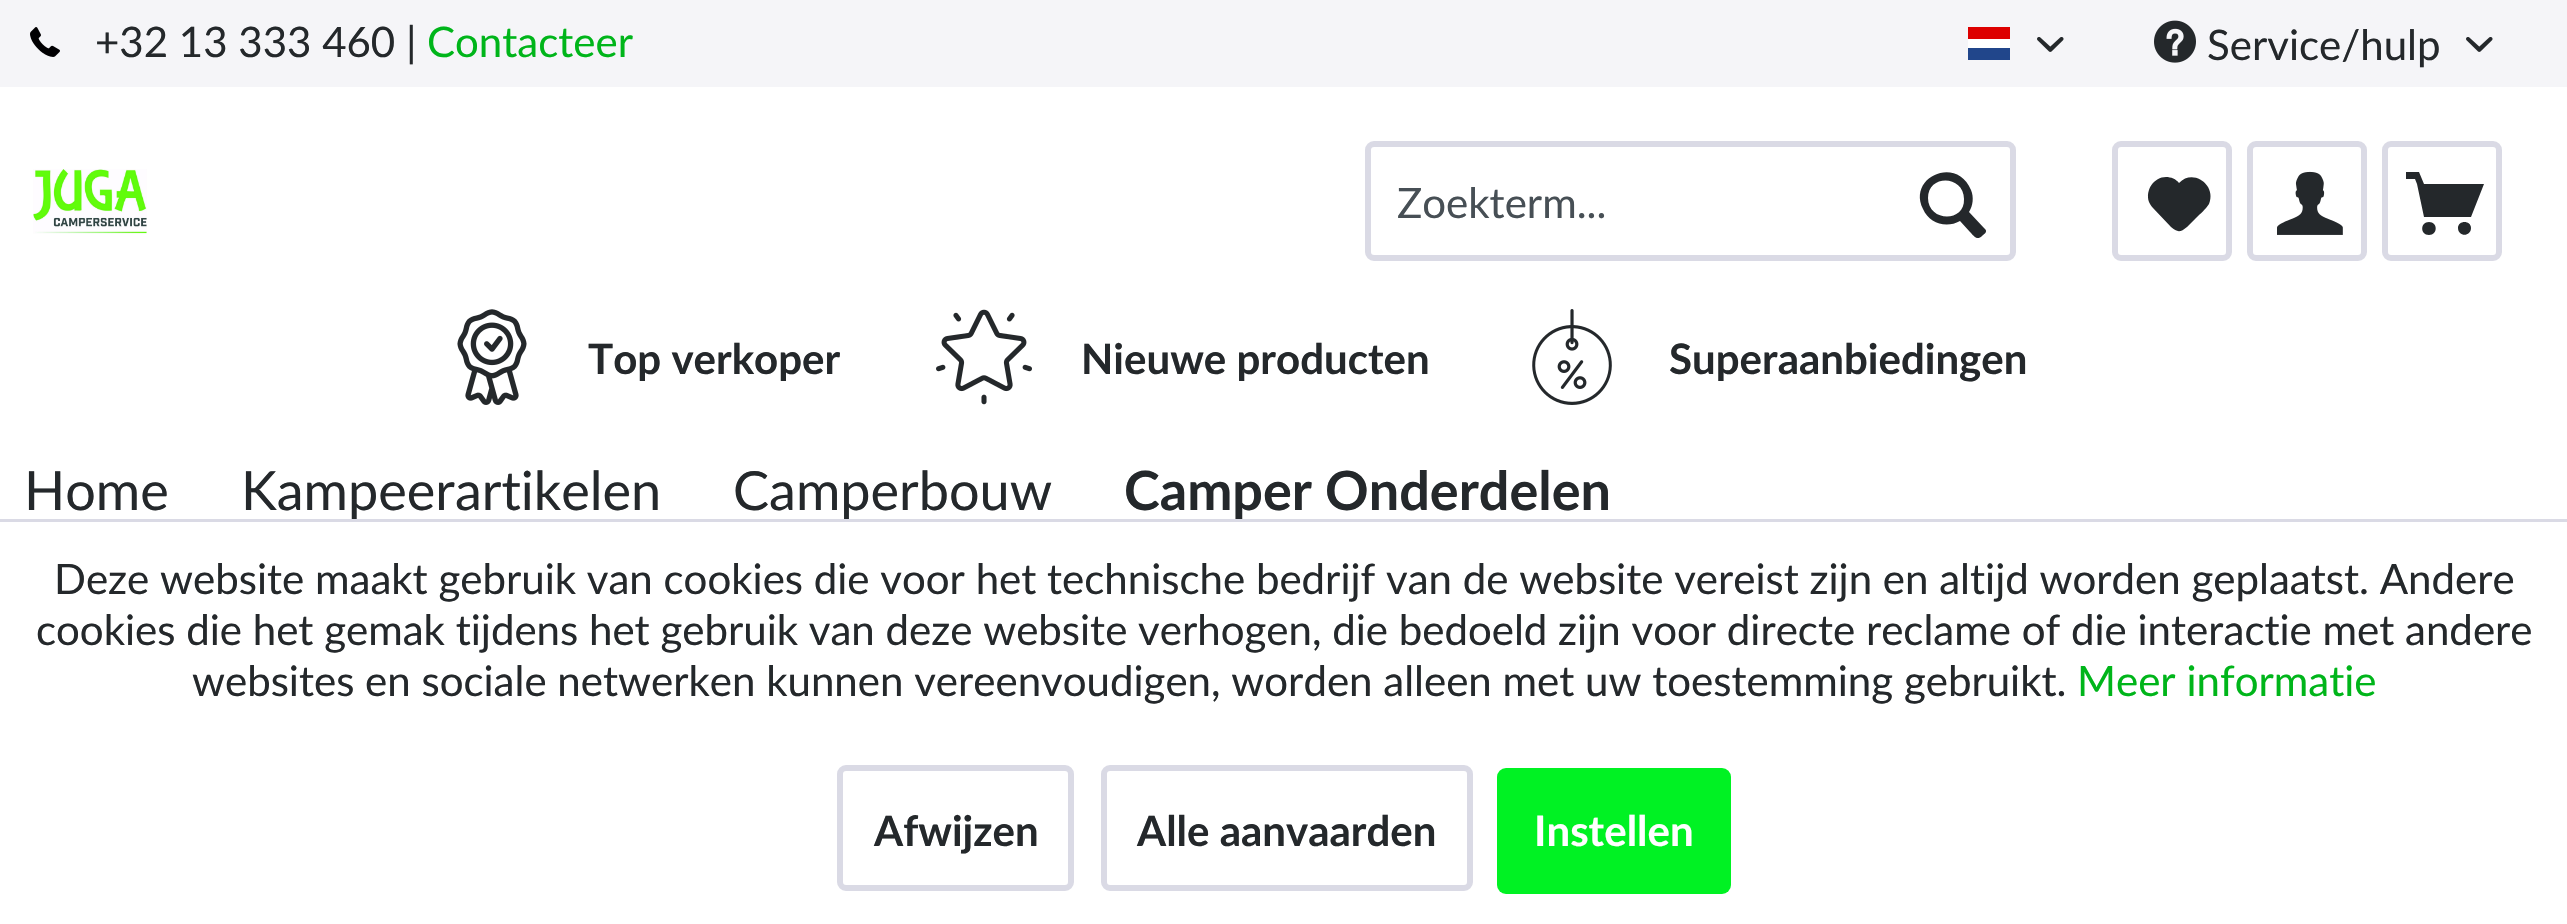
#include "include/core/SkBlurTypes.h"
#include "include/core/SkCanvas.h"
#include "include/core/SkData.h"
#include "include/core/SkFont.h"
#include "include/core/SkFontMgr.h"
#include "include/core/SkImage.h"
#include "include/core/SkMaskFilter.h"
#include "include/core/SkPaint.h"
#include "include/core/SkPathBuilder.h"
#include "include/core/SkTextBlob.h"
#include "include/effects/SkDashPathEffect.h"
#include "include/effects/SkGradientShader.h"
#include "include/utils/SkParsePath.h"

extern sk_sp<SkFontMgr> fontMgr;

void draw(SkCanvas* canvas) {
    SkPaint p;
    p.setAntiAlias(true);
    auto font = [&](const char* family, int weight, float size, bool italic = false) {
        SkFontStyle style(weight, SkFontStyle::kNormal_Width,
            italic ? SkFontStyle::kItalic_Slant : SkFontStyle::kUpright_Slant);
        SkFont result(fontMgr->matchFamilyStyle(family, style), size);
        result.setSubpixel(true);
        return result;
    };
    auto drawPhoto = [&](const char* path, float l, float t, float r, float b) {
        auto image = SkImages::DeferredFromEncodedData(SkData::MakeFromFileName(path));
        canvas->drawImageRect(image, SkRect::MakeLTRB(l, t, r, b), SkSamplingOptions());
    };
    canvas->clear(0xFFFFFFFF);
    p.setColor(0xFFF5F5F8);
    canvas->drawRect(SkRect::MakeLTRB(0, 0, 2567, 87), p);
    drawPhoto("media/1.png", 30, 27, 60, 57);
    auto font1 = font("Lato", 400, 42);
    p.setColor(0xFF24282B);
    canvas->drawString("+32 13 333 460 |", 95, 57, font1, p);
    p.setColor(0xFF00B51A);
    canvas->drawString("Contacteer", 427, 57, font1, p);
    {
        const struct { float l, t, r, b; SkColor color; } items[] = {
            {1968, 27, 2010, 39, 0xFFDD0000},
            {1968, 39, 2010, 48, 0xFFFFFFFF},
            {1968, 48, 2010, 60, 0xFF21468B},
        };
        for (auto [l, t, r, b, color] : items) {
            p.setColor(color);
            canvas->drawRect(SkRect::MakeLTRB(l, t, r, b), p);
        }
    }
    drawPhoto("media/2.png", 2037, 37, 2064, 52);
    drawPhoto("media/3.png", 2154, 20, 2196, 63);
    p.setColor(0xFF24282B);
    canvas->drawString("Service/hulp", 2207, 60, font1, p);
    drawPhoto("media/2.png", 2466, 37, 2493, 52);
    drawPhoto("media/4.png", 33, 169, 147, 234);
    p.setStyle(SkPaint::kStroke_Style);
    p.setStrokeWidth(6);
    p.setColor(0xFFDADAE5);
    canvas->drawRoundRect(SkRect::MakeLTRB(1368, 144, 2013, 258), 6, 6, p);
    p.setStyle(SkPaint::kFill_Style);
    p.setColor(0xFF474F55);
    canvas->drawString("Zoekterm...", 1397, 218, font1, p);
    p.setColor(0xFF24282B);
    canvas->drawPath(SkPathBuilder().moveTo(1984, 228).lineTo(1969, 212).cubicTo(1973, 206, 1974, 197, 1971, 190).cubicTo(1957, 155, 1907, 177, 1923, 209).cubicTo(1929, 223, 1946, 229, 1960, 221).lineTo(1970, 232).cubicTo(1974, 236, 1977, 241, 1982, 236).cubicTo(1984, 234, 1988, 232, 1985, 229).close().moveTo(1928, 198).cubicTo(1928, 174, 1964, 175, 1964, 199).cubicTo(1965, 223, 1928, 222, 1928, 198).close().detach(), p);
    p.setStyle(SkPaint::kStroke_Style);
    p.setColor(0xFFDADAE5);
    canvas->drawRoundRect(SkRect::MakeLTRB(2115, 144, 2229, 258), 6, 6, p);
    p.setStyle(SkPaint::kFill_Style);
    p.setColor(0xFF24282B);
    canvas->drawPath(SkPathBuilder().moveTo(2166, 177).cubicTo(2154, 177, 2145, 190, 2149, 202).cubicTo(2150, 204, 2151, 206, 2153, 208).lineTo(2171, 227).cubicTo(2177, 232, 2180, 233, 2187, 227).lineTo(2196, 218).cubicTo(2200, 214, 2206, 209, 2209, 204).cubicTo(2217, 185, 2193, 168, 2179, 183).cubicTo(2176, 179, 2171, 177, 2166, 177).close().detach(), p);
    p.setStyle(SkPaint::kStroke_Style);
    p.setColor(0xFFDADAE5);
    canvas->drawRoundRect(SkRect::MakeLTRB(2250, 144, 2364, 258), 6, 6, p);
    drawPhoto("media/5.png", 2277, 171, 2343, 235);
    canvas->drawRoundRect(SkRect::MakeLTRB(2385, 144, 2499, 258), 6, 6, p);
    p.setStyle(SkPaint::kFill_Style);
    p.setColor(0xFF24282B);
    canvas->drawPath(SkPathBuilder().moveTo(2424, 217).lineTo(2471, 217).lineTo(2484, 184).lineTo(2424, 184).lineTo(2419, 172).lineTo(2406, 172).lineTo(2406, 179).lineTo(2415, 179).lineTo(2417, 184).close().moveTo(2429, 222).cubicTo(2420, 222, 2420, 235, 2429, 235).cubicTo(2438, 235, 2438, 222, 2429, 222).close().moveTo(2471, 228).cubicTo(2471, 237, 2458, 237, 2458, 228).cubicTo(2458, 220, 2471, 220, 2471, 228).close().detach(), p);
    drawPhoto("media/6.png", 457, 309, 527, 405);
    auto font2 = font("Lato", 700, 42);
    canvas->drawString("Top verkoper", 588, 374, font2, p);
    drawPhoto("media/7.png", 936, 309, 1032, 405);
    canvas->drawString("Nieuwe producten", 1081, 374, font2, p);
    drawPhoto("media/8.png", 1532, 309, 1612, 405);
    canvas->drawString("Superaanbiedingen", 1669, 374, font2, p);
    auto font3 = font("Lato", 400, 54);
    {
        const struct { const char* s; float x, y; } items[] = {
            {"Home", 24, 510},
            {"Kampeerartikelen", 241, 510},
            {"Camperbouw", 733, 510},
        };
        for (auto [s, x, y] : items) {
            canvas->drawString(s, x, y, font3, p);
        }
    }
    auto font4 = font("Lato", 700, 54);
    canvas->drawString("Camper Onderdelen", 1124, 510, font4, p);
    p.setColor(0xFFDADAE5);
    canvas->drawRect(SkRect::MakeLTRB(0, 519, 2567, 522), p);
    p.setColor(0xFF24282B);
    {
        const struct { const char* s; float x, y; } items[] = {
            {"Deze website maakt gebruik van cookies die voor het technische bedrijf van de website vereist zijn en altijd worden geplaatst. Andere", 54, 594},
            {"cookies die het gemak tijdens het gebruik van deze website verhogen, die bedoeld zijn voor directe reclame of die interactie met andere", 36, 645},
            {"websites en sociale netwerken kunnen vereenvoudigen, worden alleen met uw toestemming gebruikt.", 192, 696},
        };
        for (auto [s, x, y] : items) {
            canvas->drawString(s, x, y, font1, p);
        }
    }
    p.setColor(0xFF00B51A);
    canvas->drawString("Meer informatie", 2077, 696, font1, p);
    p.setStyle(SkPaint::kStroke_Style);
    p.setColor(0xFFDADAE5);
    canvas->drawRoundRect(SkRect::MakeLTRB(840, 768, 1071, 888), 6, 6, p);
    p.setStyle(SkPaint::kFill_Style);
    p.setColor(0xFF24282B);
    canvas->drawString("Afwijzen", 874, 846, font2, p);
    p.setStyle(SkPaint::kStroke_Style);
    p.setColor(0xFFDADAE5);
    canvas->drawRoundRect(SkRect::MakeLTRB(1104, 768, 1470, 888), 6, 6, p);
    p.setStyle(SkPaint::kFill_Style);
    p.setColor(0xFF24282B);
    canvas->drawString("Alle aanvaarden", 1137, 846, font2, p);
    p.setColor(0xFF00F223);
    canvas->drawRoundRect(SkRect::MakeLTRB(1497, 768, 1731, 894), 9, 9, p);
    p.setColor(0xFFFFFFFF);
    canvas->drawString("Instellen", 1534, 846, font2, p);
}
